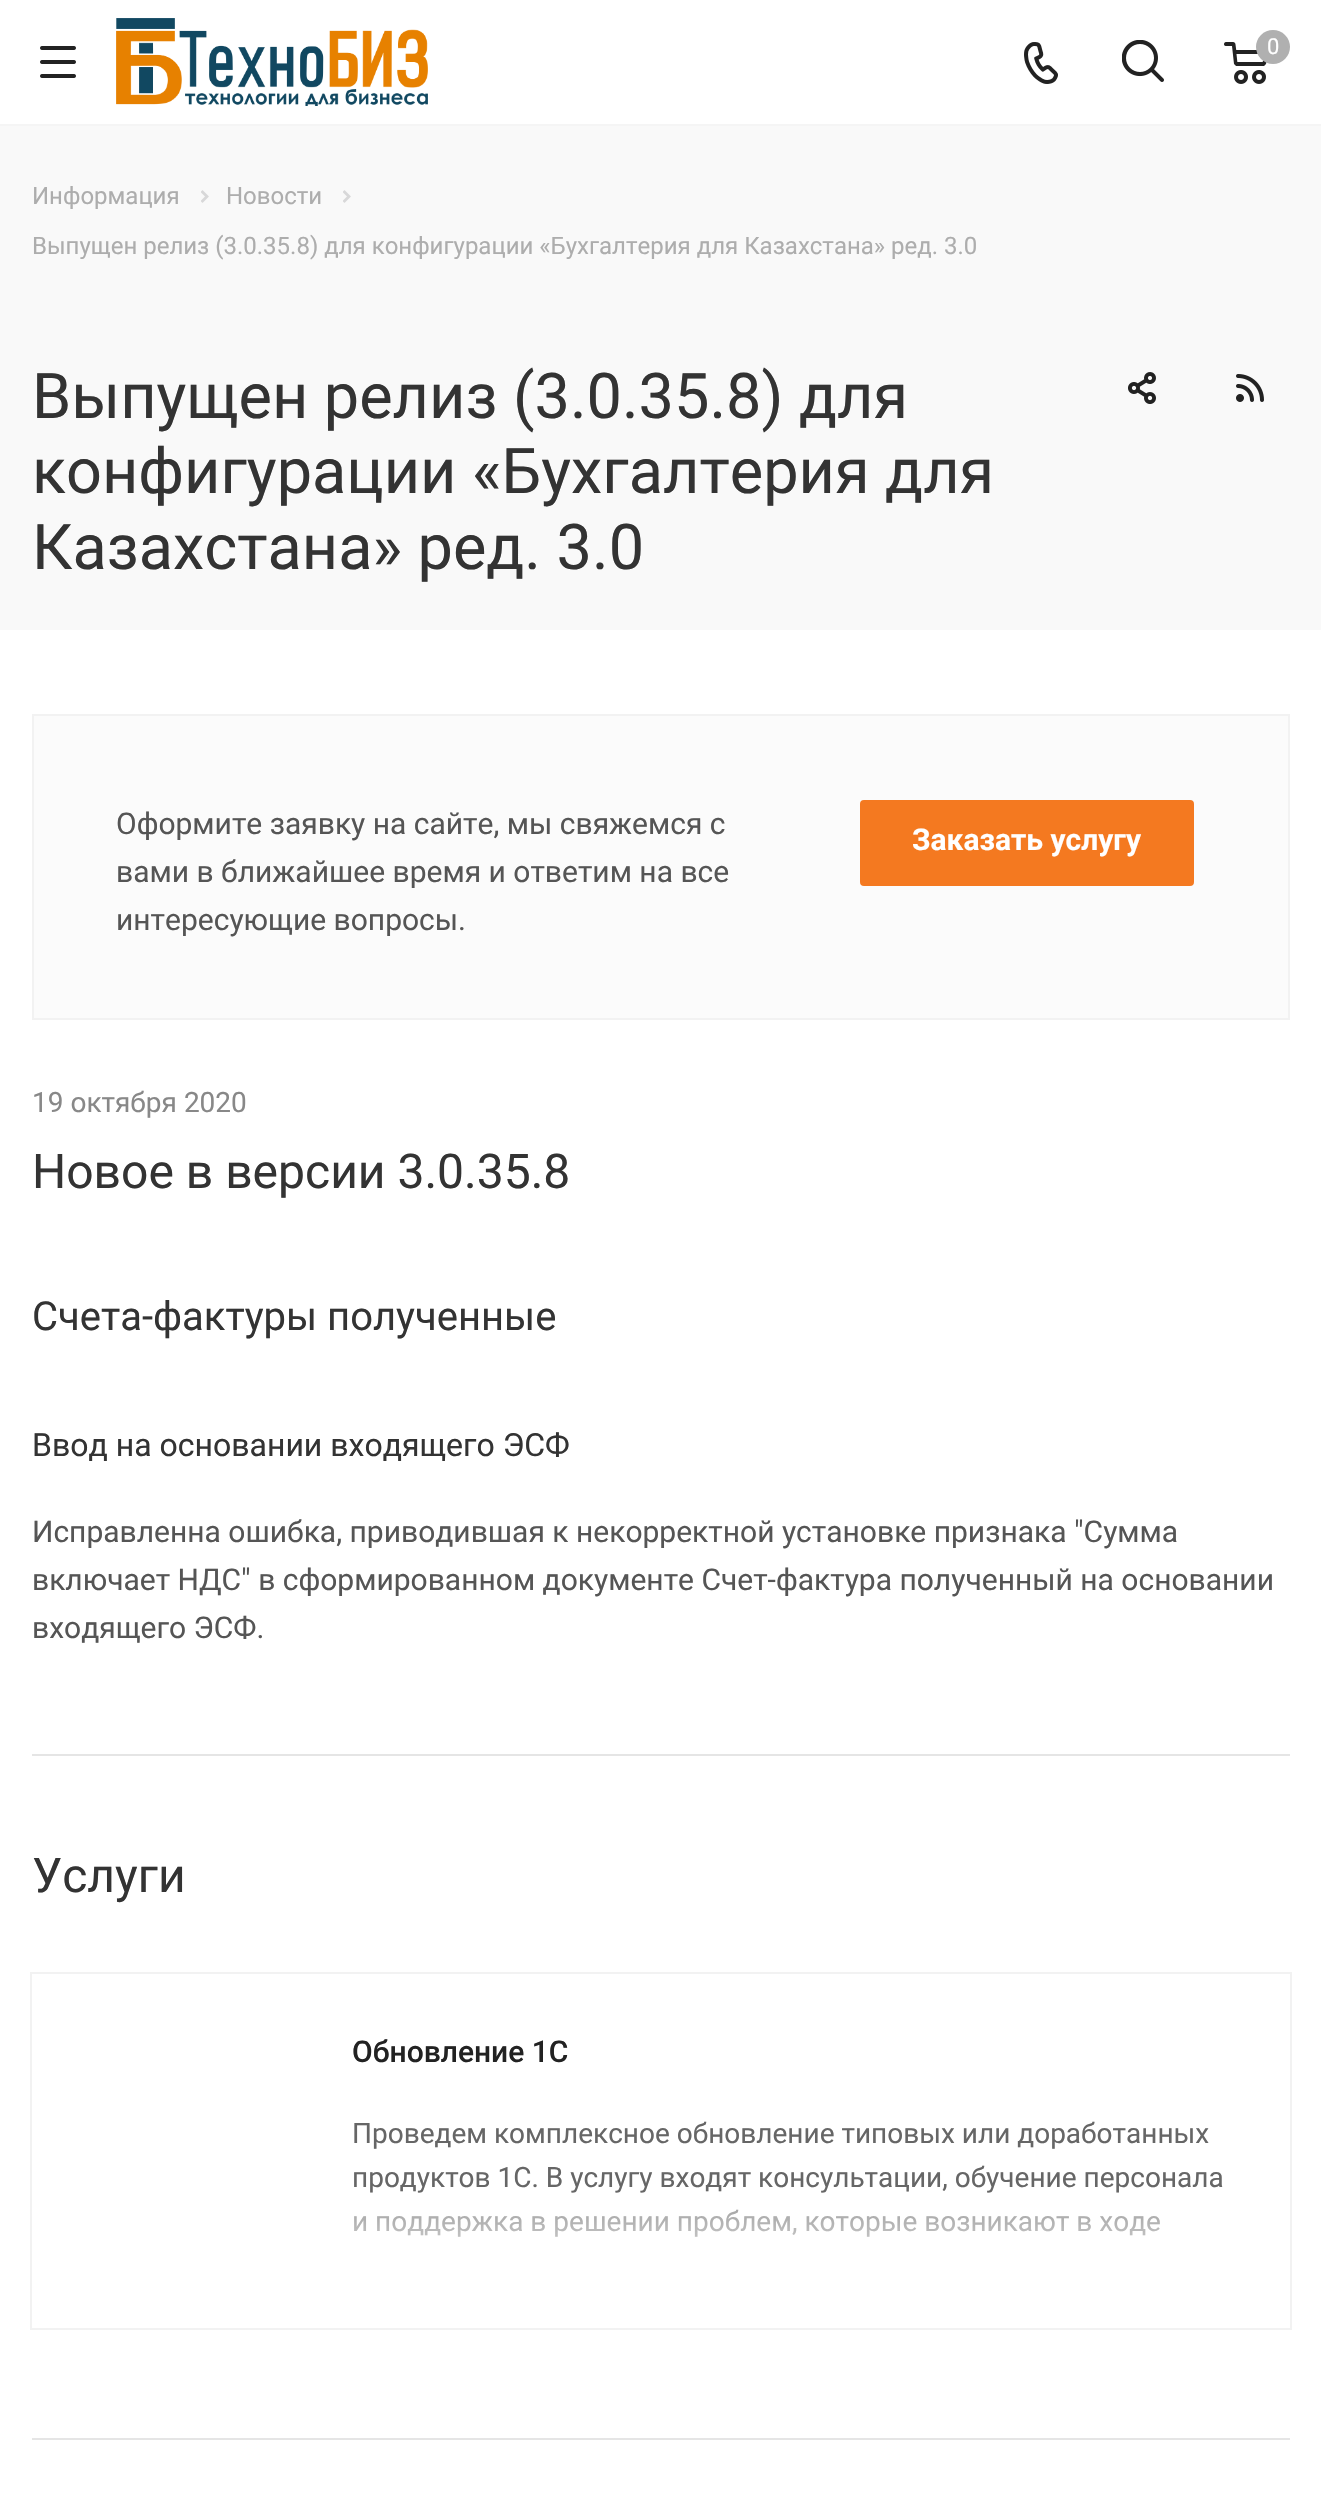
#include "include/core/SkBlurTypes.h"
#include "include/core/SkCanvas.h"
#include "include/core/SkData.h"
#include "include/core/SkFont.h"
#include "include/core/SkFontMgr.h"
#include "include/core/SkImage.h"
#include "include/core/SkMaskFilter.h"
#include "include/core/SkPaint.h"
#include "include/core/SkPathBuilder.h"
#include "include/core/SkTextBlob.h"
#include "include/effects/SkDashPathEffect.h"
#include "include/effects/SkGradientShader.h"
#include "include/utils/SkParsePath.h"

extern sk_sp<SkFontMgr> fontMgr;

void draw(SkCanvas* canvas) {
    SkPaint p;
    p.setAntiAlias(true);
    auto font = [&](const char* family, int weight, float size, bool italic = false) {
        SkFontStyle style(weight, SkFontStyle::kNormal_Width,
            italic ? SkFontStyle::kItalic_Slant : SkFontStyle::kUpright_Slant);
        SkFont result(fontMgr->matchFamilyStyle(family, style), size);
        result.setSubpixel(true);
        return result;
    };
    auto drawPhoto = [&](const char* path, float l, float t, float r, float b) {
        auto image = SkImages::DeferredFromEncodedData(SkData::MakeFromFileName(path));
        canvas->drawImageRect(image, SkRect::MakeLTRB(l, t, r, b), SkSamplingOptions());
    };
    canvas->clear(0xFFFFFFFF);
    p.setColor(0xFFF5F5F5);
    canvas->drawRect(SkRect::MakeLTRB(0, 124, 1321, 126), p);
    drawPhoto("media/1.png", 40, 46, 76, 78);
    drawPhoto("media/2.png", 116, 18, 428, 106);
    drawPhoto("media/3.png", 1024, 42, 1058, 84);
    drawPhoto("media/4.png", 1122, 40, 1164, 82);
    drawPhoto("media/5.png", 1224, 42, 1267, 84);
    p.setColor(0xFFB0B0B0);
    canvas->drawCircle(1273, 47, 17, p);
    auto font1 = font("Roboto", 400, 22);
    p.setColor(0xFFFFFFFF);
    canvas->drawString("0", 1267, 54, font1, p);
    p.setColor(0xFFF9F9F9);
    canvas->drawRect(SkRect::MakeLTRB(0, 126, 1321, 630), p);
    auto font2 = font("Roboto", 400, 24);
    p.setColor(0xFFADADAD);
    canvas->drawString("Информация", 32, 204, font2, p);
    drawPhoto("media/6.png", 201, 190, 209, 203);
    canvas->drawString("Новости", 226, 204, font2, p);
    drawPhoto("media/6.png", 343, 190, 351, 203);
    canvas->drawString("Выпущен релиз (3.0.35.8) для конфигурации «Бухгалтерия для Казахстана» ред. 3.0", 32, 254, font2, p);
    auto font3 = font("Roboto", 400, 63);
    p.setColor(0xFF333333);
    {
        const struct { const char* s; float x, y; } items[] = {
            {"Выпущен релиз (3.0.35.8) для", 32, 418},
            {"конфигурации «Бухгалтерия для", 32, 493},
            {"Казахстана» ред. 3.0", 32, 569},
        };
        for (auto [s, x, y] : items) {
            canvas->drawString(s, x, y, font3, p);
        }
    }
    drawPhoto("media/7.png", 1128, 372, 1156, 404);
    drawPhoto("media/8.png", 1236, 374, 1264, 402);
    {
        const struct { float l, t, r, b; SkColor color; } items[] = {
            {34, 716, 1288, 1018, 0xFFFBFBFB},
            {32, 714, 1290, 716, 0xFFF2F2F2},
            {1288, 714, 1290, 1020, 0xFFF2F2F2},
            {32, 1018, 1290, 1020, 0xFFF2F2F2},
            {32, 714, 34, 1020, 0xFFF2F2F2},
        };
        for (auto [l, t, r, b, color] : items) {
            p.setColor(color);
            canvas->drawRect(SkRect::MakeLTRB(l, t, r, b), p);
        }
    }
    auto font4 = font("Roboto", 400, 30);
    p.setColor(0xFF555555);
    {
        const struct { const char* s; float x, y; } items[] = {
            {"Оформите заявку на сайте, мы свяжемся с", 116, 834},
            {"вами в ближайшее время и ответим на все", 116, 882},
            {"интересующие вопросы.", 116, 930},
        };
        for (auto [s, x, y] : items) {
            canvas->drawString(s, x, y, font4, p);
        }
    }
    p.setColor(0xFFF47920);
    canvas->drawRoundRect(SkRect::MakeLTRB(861, 801, 1193, 885), 3, 3, p);
    p.setStyle(SkPaint::kStroke_Style);
    p.setStrokeWidth(2);
    canvas->drawRoundRect(SkRect::MakeLTRB(861, 801, 1193, 885), 3, 3, p);
    auto font5 = font("Roboto", 700, 30);
    p.setStyle(SkPaint::kFill_Style);
    p.setColor(0xFFFFFFFF);
    canvas->drawString("Заказать услугу", 912, 850, font5, p);
    auto font6 = font("Roboto", 400, 28);
    p.setColor(0xFF888888);
    canvas->drawString("19 октября 2020", 32, 1112, font6, p);
    auto font7 = font("Roboto", 400, 48);
    p.setColor(0xFF333333);
    canvas->drawString("Новое в версии 3.0.35.8", 32, 1188, font7, p);
    auto font8 = font("Roboto", 400, 40);
    canvas->drawString("Счета-фактуры полученные", 32, 1330, font8, p);
    auto font9 = font("Roboto", 400, 32);
    canvas->drawString("Ввод на основании входящего ЭСФ", 32, 1456, font9, p);
    p.setColor(0xFF555555);
    {
        const struct { const char* s; float x, y; } items[] = {
            {"Исправленна ошибка, приводившая к некорректной установке признака \"Сумма", 32, 1542},
            {"включает НДС\" в сформированном документе Счет-фактура полученный на основании", 32, 1590},
            {"входящего ЭСФ.", 32, 1638},
        };
        for (auto [s, x, y] : items) {
            canvas->drawString(s, x, y, font4, p);
        }
    }
    p.setColor(0xFFE5E5E5);
    canvas->drawRect(SkRect::MakeLTRB(32, 1754, 1290, 1756), p);
    p.setColor(0xFF333333);
    canvas->drawString("Услуги", 32, 1892, font7, p);
    p.setStyle(SkPaint::kStroke_Style);
    p.setColor(0xFFF2F2F2);
    canvas->drawRect(SkRect::MakeLTRB(31, 1973, 1291, 2329), p);
    auto font10 = font("Roboto", 500, 30);
    p.setStyle(SkPaint::kFill_Style);
    p.setColor(0xFF222222);
    canvas->drawString("Обновление 1С", 352, 2062, font10, p);
    p.setColor(0xFF666666);
    {
        const struct { const char* s; float x, y; } items[] = {
            {"Проведем комплексное обновление типовых или доработанных", 352, 2143},
            {"продуктов 1С. В услугу входят консультации, обучение персонала", 352, 2187},
            {"и поддержка в решении проблем, которые возникают в ходе", 352, 2231},
        };
        for (auto [s, x, y] : items) {
            canvas->drawString(s, x, y, font6, p);
        }
    }
    p.setColor(0x52FFFFFF);
    canvas->drawRect(SkRect::MakeLTRB(354, 2192, 1160, 2237), p);
    {
        const SkColor colors[] = {0x00FFFFFF, 0xD9FFFFFF};
        const float stops[] = {0, 1};
        const SkPoint ends[] = {{791, 2192}, {791, 2288}};
        p.setShader(SkGradientShader::MakeLinear(ends, colors, stops, 2, SkTileMode::kClamp));
        p.setAlpha(255);
    }
    canvas->drawRect(SkRect::MakeLTRB(354, 2209, 1160, 2237), p);
    p.setShader(nullptr);
    p.setColor(0xFFE5E5E5);
    canvas->drawRect(SkRect::MakeLTRB(32, 2438, 1290, 2440), p);
}
